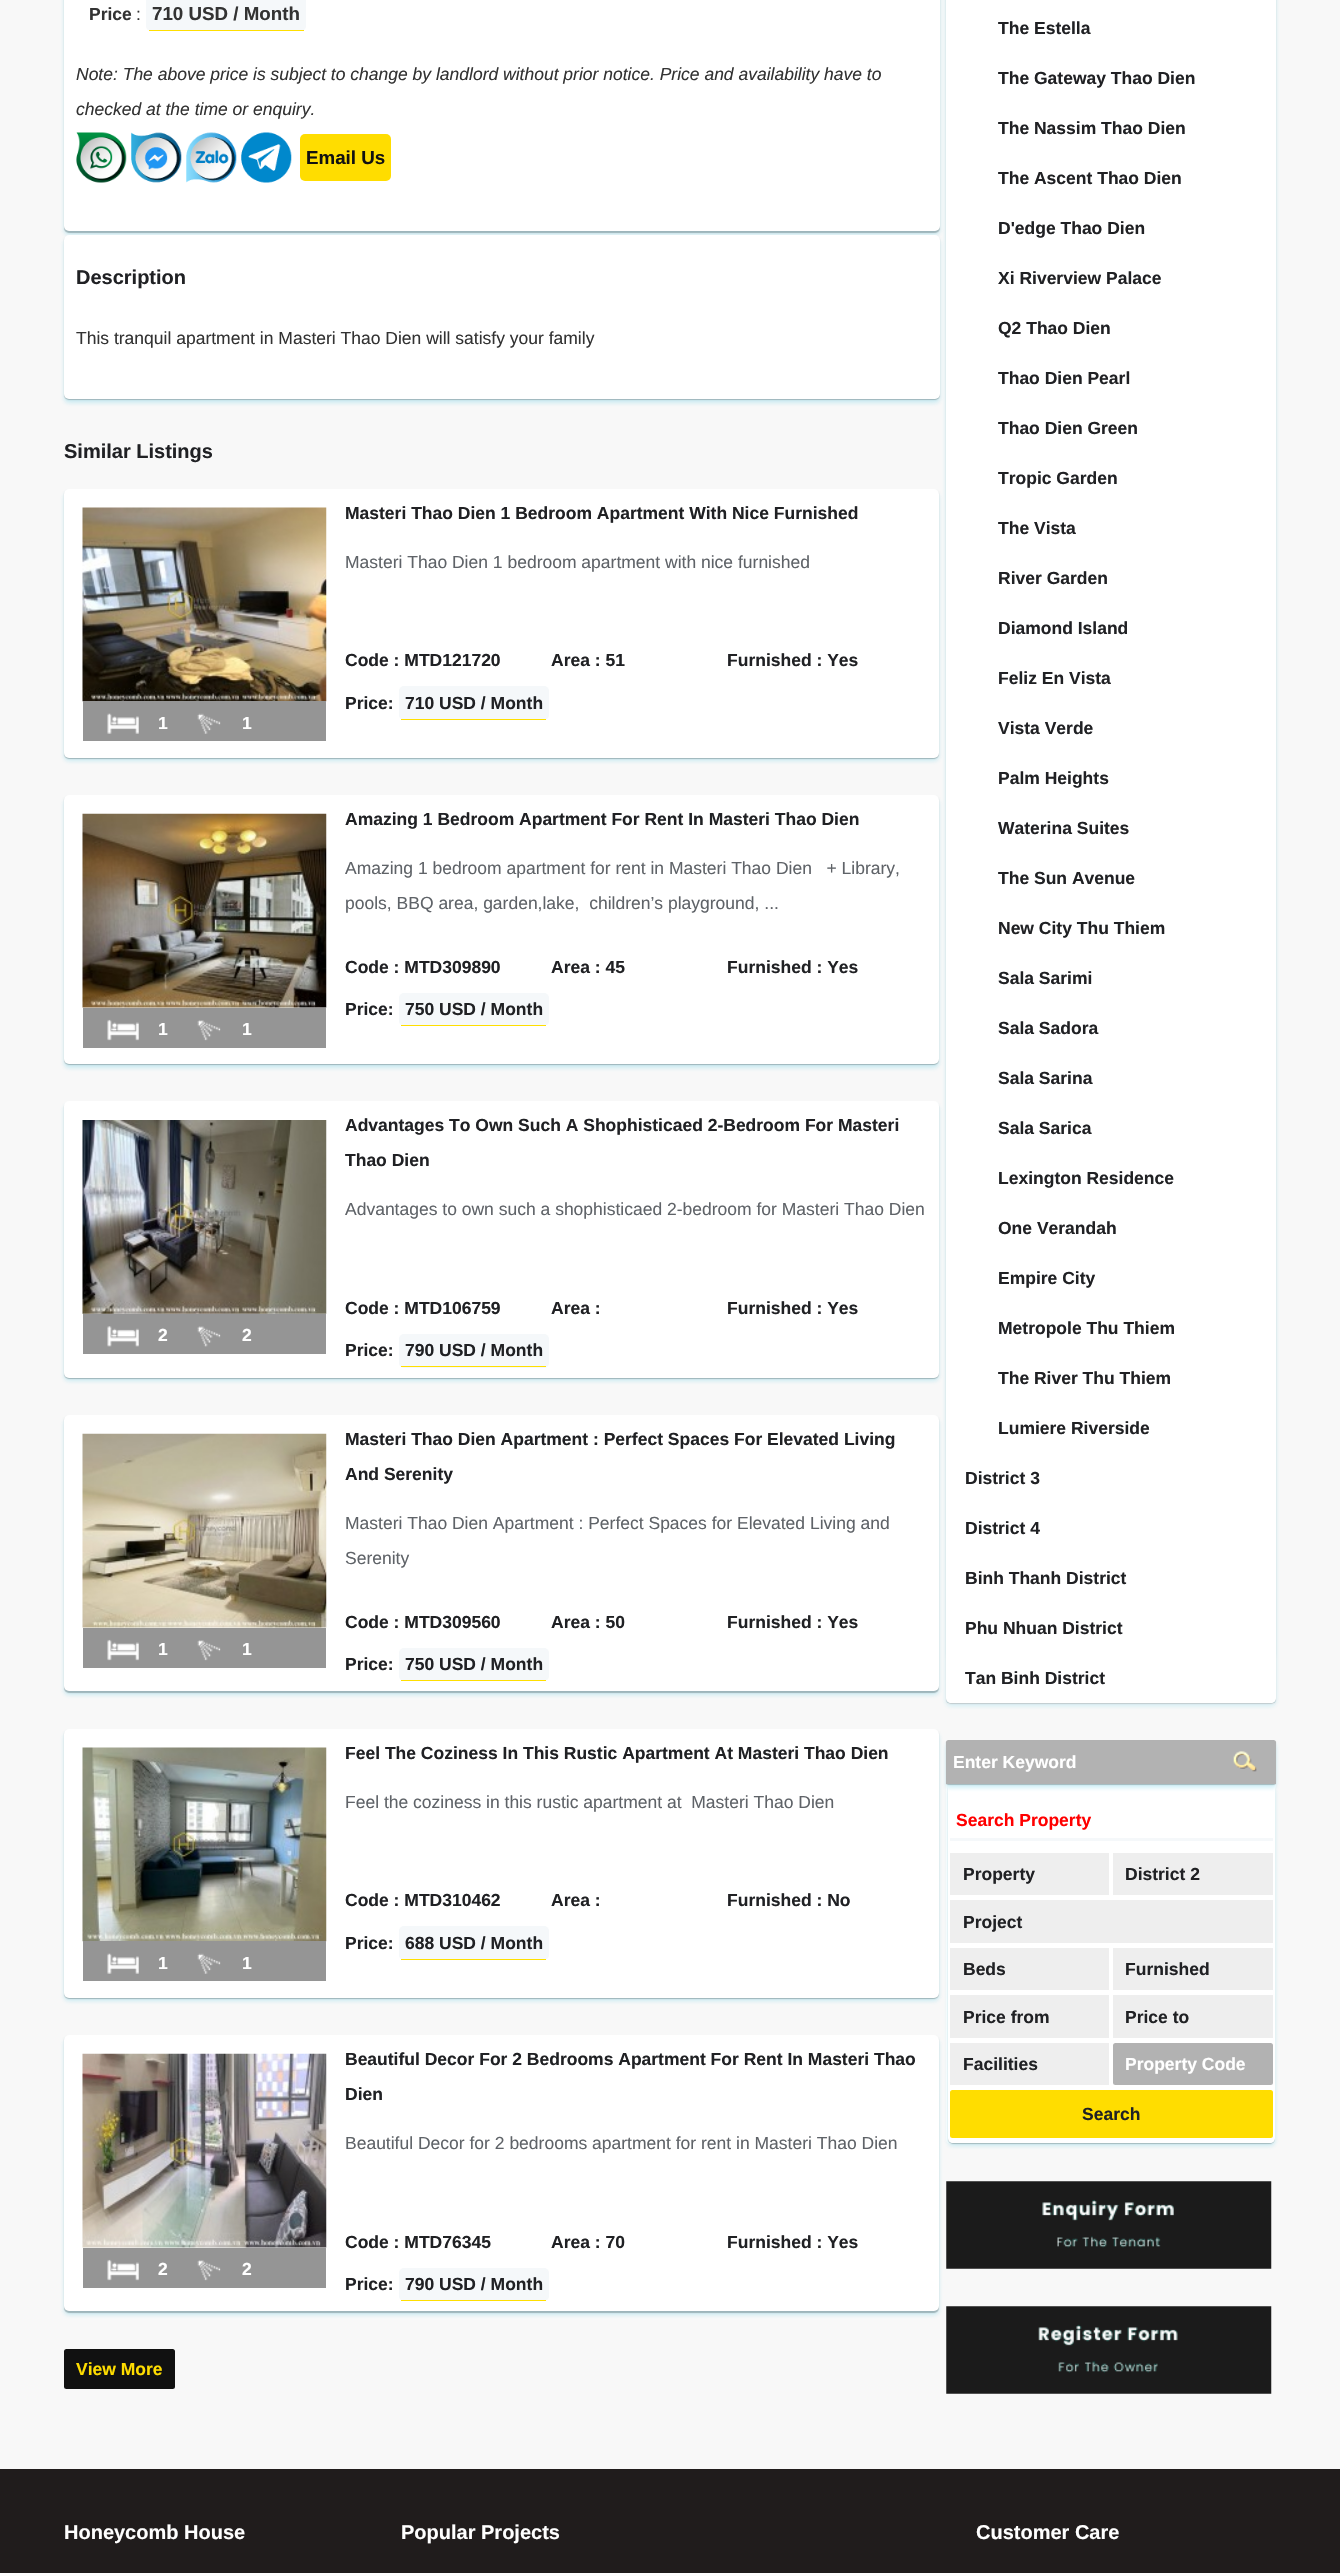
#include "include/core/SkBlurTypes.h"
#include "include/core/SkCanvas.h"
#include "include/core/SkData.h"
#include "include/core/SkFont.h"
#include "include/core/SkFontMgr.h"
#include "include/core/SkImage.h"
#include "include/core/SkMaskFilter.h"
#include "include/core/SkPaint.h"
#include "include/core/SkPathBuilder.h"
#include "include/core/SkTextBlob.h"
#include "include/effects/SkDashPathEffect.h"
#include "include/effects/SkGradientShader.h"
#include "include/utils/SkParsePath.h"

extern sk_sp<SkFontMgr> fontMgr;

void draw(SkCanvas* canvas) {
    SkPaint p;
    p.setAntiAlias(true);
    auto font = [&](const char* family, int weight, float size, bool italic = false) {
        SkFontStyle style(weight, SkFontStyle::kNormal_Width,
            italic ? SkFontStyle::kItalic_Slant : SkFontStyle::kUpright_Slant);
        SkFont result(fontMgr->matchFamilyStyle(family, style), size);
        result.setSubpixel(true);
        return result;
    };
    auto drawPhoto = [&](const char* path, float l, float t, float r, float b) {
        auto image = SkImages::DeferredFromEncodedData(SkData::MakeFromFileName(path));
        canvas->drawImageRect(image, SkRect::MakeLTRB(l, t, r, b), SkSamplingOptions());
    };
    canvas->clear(0xFF201C1C);
    p.setColor(0xFFF8F8F8);
    canvas->drawRect(SkRect::MakeLTRB(0, 0, 1340, 2469), p);
    p.setColor(0x3B30BDDD);
    p.setMaskFilter(SkMaskFilter::MakeBlur(kNormal_SkBlurStyle, 2));
    canvas->drawRoundRect(SkRect::MakeLTRB(64, -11, 940, 235), 5, 5, p);
    p.setMaskFilter(nullptr);
    p.setColor(0x3B000000);
    p.setMaskFilter(SkMaskFilter::MakeBlur(kNormal_SkBlurStyle, 0.5f));
    canvas->drawRoundRect(SkRect::MakeLTRB(64, -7, 940, 233), 5, 5, p);
    p.setMaskFilter(nullptr);
    p.setColor(0xFFFFFFFF);
    canvas->drawRoundRect(SkRect::MakeLTRB(64, -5, 940, 231), 5, 5, p);
    auto font1 = font("Liberation Sans", 700, 17.5f);
    p.setColor(0xFF333333);
    canvas->drawString("Price", 89, 20, font1, p);
    auto font2 = font("Liberation Sans", 400, 17.5f);
    canvas->drawString(":", 136, 20, font2, p);
    p.setColor(0xFFF5F8FA);
    canvas->drawRoundRect(SkRect::MakeLTRB(146, -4, 306, 31), 5, 5, p);
    auto font3 = font("Liberation Sans", 700, 18.75f);
    p.setColor(0xFF333333);
    canvas->drawString("710 USD / Month", 152, 20, font3, p);
    p.setColor(0xFFFFDF00);
    canvas->drawRect(SkRect::MakeLTRB(149, 30, 304, 31), p);
    auto font4 = font("Liberation Sans", 400, 17.5f, true);
    p.setColor(0xFF333333);
    canvas->drawString("Note: The above price is subject to change by landlord without prior notice. Price and availability have to", 76, 80, font4, p);
    canvas->drawString("checked at the time or enquiry.", 76, 115, font4, p);
    drawPhoto("media/1.png", 76, 132, 127, 183);
    drawPhoto("media/2.png", 131, 132, 182, 183);
    drawPhoto("media/3.png", 186, 132, 237, 183);
    drawPhoto("media/4.png", 241, 132, 292, 183);
    p.setColor(0xFFFFDD00);
    canvas->drawRoundRect(SkRect::MakeLTRB(300, 134, 391, 181), 5, 5, p);
    p.setColor(0xFF111111);
    canvas->drawString("Email Us", 306, 164, font3, p);
    p.setColor(0x3B30BDDD);
    p.setMaskFilter(SkMaskFilter::MakeBlur(kNormal_SkBlurStyle, 2));
    canvas->drawRoundRect(SkRect::MakeLTRB(64, 239, 940, 403), 5, 5, p);
    p.setMaskFilter(nullptr);
    p.setColor(0x3B000000);
    p.setMaskFilter(SkMaskFilter::MakeBlur(kNormal_SkBlurStyle, 0.5f));
    canvas->drawRoundRect(SkRect::MakeLTRB(64, 236, 940, 400), 5, 5, p);
    p.setMaskFilter(nullptr);
    p.setColor(0xFFFFFFFF);
    canvas->drawRoundRect(SkRect::MakeLTRB(64, 235, 940, 399), 5, 5, p);
    auto font5 = font("Liberation Sans", 700, 20);
    p.setColor(0xFF202124);
    canvas->drawString("Description", 76, 284, font5, p);
    p.setColor(0xFF333333);
    canvas->drawString("This tranquil apartment in Masteri Thao Dien will satisfy your family", 76, 344, font2, p);
    p.setColor(0xFF202124);
    canvas->drawString("Similar Listings", 64, 458, font5, p);
    p.setColor(0x3B30BDDD);
    p.setMaskFilter(SkMaskFilter::MakeBlur(kNormal_SkBlurStyle, 2));
    canvas->drawRoundRect(SkRect::MakeLTRB(64, 493, 939, 761), 5, 5, p);
    p.setMaskFilter(nullptr);
    p.setColor(0x3B000000);
    p.setMaskFilter(SkMaskFilter::MakeBlur(kNormal_SkBlurStyle, 0.5f));
    canvas->drawRoundRect(SkRect::MakeLTRB(64, 490, 939, 759), 5, 5, p);
    p.setMaskFilter(nullptr);
    p.setColor(0xFFFFFFFF);
    canvas->drawRoundRect(SkRect::MakeLTRB(64, 489, 939, 758), 5, 5, p);
    p.setColor(0xFF202124);
    canvas->drawString("Masteri Thao Dien 1 Bedroom Apartment With Nice Furnished", 345, 519, font1, p);
    p.setColor(0xFF5F6368);
    canvas->drawString("Masteri Thao Dien 1 bedroom apartment with nice furnished", 345, 568, font2, p);
    p.setColor(0xFF202124);
    {
        const struct { const char* s; float x, y; } items[] = {
            {"Code : MTD121720", 345, 666},
            {"Area : 51", 551, 666},
            {"Furnished : Yes", 727, 666},
            {"Price:", 345, 709},
        };
        for (auto [s, x, y] : items) {
            canvas->drawString(s, x, y, font1, p);
        }
    }
    p.setColor(0xFFF5F8FA);
    canvas->drawRoundRect(SkRect::MakeLTRB(399, 686, 549, 720), 5, 5, p);
    p.setColor(0xFF202124);
    canvas->drawString("710 USD / Month", 405, 709, font1, p);
    p.setColor(0xFFFFDF00);
    canvas->drawRect(SkRect::MakeLTRB(401, 719, 546, 720), p);
    drawPhoto("media/5.png", 82, 507, 327, 702);
    p.setColor(0xFF959595);
    canvas->drawRect(SkRect::MakeLTRB(83, 701, 326, 741), p);
    drawPhoto("media/6.png", 107, 713, 139, 734);
    p.setColor(0xFFFFFFFF);
    canvas->drawString("1", 158, 729, font1, p);
    drawPhoto("media/7.png", 197, 713, 221, 734);
    canvas->drawString("1", 242, 729, font1, p);
    p.setColor(0x3B30BDDD);
    p.setMaskFilter(SkMaskFilter::MakeBlur(kNormal_SkBlurStyle, 2));
    canvas->drawRoundRect(SkRect::MakeLTRB(64, 799, 939, 1068), 5, 5, p);
    p.setMaskFilter(nullptr);
    p.setColor(0x3B000000);
    p.setMaskFilter(SkMaskFilter::MakeBlur(kNormal_SkBlurStyle, 0.5f));
    canvas->drawRoundRect(SkRect::MakeLTRB(64, 796, 939, 1065), 5, 5, p);
    p.setMaskFilter(nullptr);
    p.setColor(0xFFFFFFFF);
    canvas->drawRoundRect(SkRect::MakeLTRB(64, 795, 939, 1064), 5, 5, p);
    p.setColor(0xFF202124);
    canvas->drawString("Amazing 1 Bedroom Apartment For Rent In Masteri Thao Dien", 345, 825, font1, p);
    p.setColor(0xFF5F6368);
    canvas->drawString("Amazing 1 bedroom apartment for rent in Masteri Thao Dien   + Library,", 345, 874, font2, p);
    canvas->drawString("pools, BBQ area, garden,lake,  children’s playground, ...", 345, 909, font2, p);
    p.setColor(0xFF202124);
    {
        const struct { const char* s; float x, y; } items[] = {
            {"Code : MTD309890", 345, 973},
            {"Area : 45", 551, 973},
            {"Furnished : Yes", 727, 973},
            {"Price:", 345, 1015},
        };
        for (auto [s, x, y] : items) {
            canvas->drawString(s, x, y, font1, p);
        }
    }
    p.setColor(0xFFF5F8FA);
    canvas->drawRoundRect(SkRect::MakeLTRB(399, 993, 549, 1026), 5, 5, p);
    p.setColor(0xFF202124);
    canvas->drawString("750 USD / Month", 405, 1015, font1, p);
    p.setColor(0xFFFFDF00);
    canvas->drawRect(SkRect::MakeLTRB(401, 1025, 546, 1026), p);
    drawPhoto("media/8.png", 82, 813, 327, 1008);
    p.setColor(0xFF959595);
    canvas->drawRect(SkRect::MakeLTRB(83, 1008, 326, 1048), p);
    drawPhoto("media/9.png", 107, 1019, 139, 1041);
    p.setColor(0xFFFFFFFF);
    canvas->drawString("1", 158, 1035, font1, p);
    drawPhoto("media/10.png", 197, 1020, 221, 1041);
    canvas->drawString("1", 242, 1035, font1, p);
    p.setColor(0x3B30BDDD);
    p.setMaskFilter(SkMaskFilter::MakeBlur(kNormal_SkBlurStyle, 2));
    canvas->drawRoundRect(SkRect::MakeLTRB(64, 1105, 939, 1381), 5, 5, p);
    p.setMaskFilter(nullptr);
    p.setColor(0x3B000000);
    p.setMaskFilter(SkMaskFilter::MakeBlur(kNormal_SkBlurStyle, 0.5f));
    canvas->drawRoundRect(SkRect::MakeLTRB(64, 1103, 939, 1379), 5, 5, p);
    p.setMaskFilter(nullptr);
    p.setColor(0xFFFFFFFF);
    canvas->drawRoundRect(SkRect::MakeLTRB(64, 1101, 939, 1378), 5, 5, p);
    drawPhoto("media/11.png", 82, 1120, 327, 1314);
    p.setColor(0xFF959595);
    canvas->drawRect(SkRect::MakeLTRB(83, 1314, 326, 1354), p);
    drawPhoto("media/12.png", 107, 1326, 139, 1347);
    p.setColor(0xFFFFFFFF);
    canvas->drawString("2", 158, 1341, font1, p);
    drawPhoto("media/13.png", 197, 1326, 221, 1347);
    canvas->drawString("2", 242, 1341, font1, p);
    p.setColor(0xFF202124);
    canvas->drawString("Advantages To Own Such A Shophisticaed 2-Bedroom For Masteri", 345, 1131, font1, p);
    canvas->drawString("Thao Dien", 345, 1166, font1, p);
    p.setColor(0xFF5F6368);
    canvas->drawString("Advantages to own such a shophisticaed 2-bedroom for Masteri Thao Dien", 345, 1215, font2, p);
    p.setColor(0xFF202124);
    {
        const struct { const char* s; float x, y; } items[] = {
            {"Code : MTD106759", 345, 1314},
            {"Area :", 551, 1314},
            {"Furnished : Yes", 727, 1314},
            {"Price:", 345, 1356},
        };
        for (auto [s, x, y] : items) {
            canvas->drawString(s, x, y, font1, p);
        }
    }
    p.setColor(0xFFF5F8FA);
    canvas->drawRoundRect(SkRect::MakeLTRB(399, 1334, 549, 1368), 5, 5, p);
    p.setColor(0xFF202124);
    canvas->drawString("790 USD / Month", 405, 1356, font1, p);
    p.setColor(0xFFFFDF00);
    canvas->drawRect(SkRect::MakeLTRB(401, 1366, 546, 1367), p);
    p.setColor(0x3B30BDDD);
    p.setMaskFilter(SkMaskFilter::MakeBlur(kNormal_SkBlurStyle, 2));
    canvas->drawRoundRect(SkRect::MakeLTRB(64, 1419, 939, 1695), 5, 5, p);
    p.setMaskFilter(nullptr);
    p.setColor(0x3B000000);
    p.setMaskFilter(SkMaskFilter::MakeBlur(kNormal_SkBlurStyle, 0.5f));
    canvas->drawRoundRect(SkRect::MakeLTRB(64, 1416, 939, 1693), 5, 5, p);
    p.setMaskFilter(nullptr);
    p.setColor(0xFFFFFFFF);
    canvas->drawRoundRect(SkRect::MakeLTRB(64, 1415, 939, 1691), 5, 5, p);
    drawPhoto("media/14.png", 82, 1433, 327, 1628);
    p.setColor(0xFF959595);
    canvas->drawRect(SkRect::MakeLTRB(83, 1628, 326, 1668), p);
    drawPhoto("media/9.png", 107, 1639, 139, 1661);
    p.setColor(0xFFFFFFFF);
    canvas->drawString("1", 158, 1655, font1, p);
    drawPhoto("media/10.png", 197, 1640, 221, 1661);
    canvas->drawString("1", 242, 1655, font1, p);
    p.setColor(0xFF202124);
    canvas->drawString("Masteri Thao Dien Apartment : Perfect Spaces For Elevated Living", 345, 1445, font1, p);
    canvas->drawString("And Serenity", 345, 1480, font1, p);
    p.setColor(0xFF5F6368);
    canvas->drawString("Masteri Thao Dien Apartment : Perfect Spaces for Elevated Living and", 345, 1529, font2, p);
    canvas->drawString("Serenity", 345, 1564, font2, p);
    p.setColor(0xFF202124);
    {
        const struct { const char* s; float x, y; } items[] = {
            {"Code : MTD309560", 345, 1628},
            {"Area : 50", 551, 1628},
            {"Furnished : Yes", 727, 1628},
            {"Price:", 345, 1670},
        };
        for (auto [s, x, y] : items) {
            canvas->drawString(s, x, y, font1, p);
        }
    }
    p.setColor(0xFFF5F8FA);
    canvas->drawRoundRect(SkRect::MakeLTRB(399, 1648, 549, 1681), 5, 5, p);
    p.setColor(0xFF202124);
    canvas->drawString("750 USD / Month", 405, 1670, font1, p);
    p.setColor(0xFFFFDF00);
    canvas->drawRect(SkRect::MakeLTRB(401, 1680, 546, 1681), p);
    p.setColor(0x3B30BDDD);
    p.setMaskFilter(SkMaskFilter::MakeBlur(kNormal_SkBlurStyle, 2));
    canvas->drawRoundRect(SkRect::MakeLTRB(64, 1733, 939, 2001), 5, 5, p);
    p.setMaskFilter(nullptr);
    p.setColor(0x3B000000);
    p.setMaskFilter(SkMaskFilter::MakeBlur(kNormal_SkBlurStyle, 0.5f));
    canvas->drawRoundRect(SkRect::MakeLTRB(64, 1730, 939, 1999), 5, 5, p);
    p.setMaskFilter(nullptr);
    p.setColor(0xFFFFFFFF);
    canvas->drawRoundRect(SkRect::MakeLTRB(64, 1729, 939, 1998), 5, 5, p);
    p.setColor(0xFF202124);
    canvas->drawString("Feel The Coziness In This Rustic Apartment At Masteri Thao Dien", 345, 1759, font1, p);
    p.setColor(0xFF5F6368);
    canvas->drawString("Feel the coziness in this rustic apartment at  Masteri Thao Dien", 345, 1808, font2, p);
    p.setColor(0xFF202124);
    {
        const struct { const char* s; float x, y; } items[] = {
            {"Code : MTD310462", 345, 1906},
            {"Area :", 551, 1906},
            {"Furnished : No", 727, 1906},
            {"Price:", 345, 1949},
        };
        for (auto [s, x, y] : items) {
            canvas->drawString(s, x, y, font1, p);
        }
    }
    p.setColor(0xFFF5F8FA);
    canvas->drawRoundRect(SkRect::MakeLTRB(399, 1926, 549, 1960), 5, 5, p);
    p.setColor(0xFF202124);
    canvas->drawString("688 USD / Month", 405, 1949, font1, p);
    p.setColor(0xFFFFDF00);
    canvas->drawRect(SkRect::MakeLTRB(401, 1959, 546, 1960), p);
    drawPhoto("media/15.png", 82, 1747, 327, 1942);
    p.setColor(0xFF959595);
    canvas->drawRect(SkRect::MakeLTRB(83, 1941, 326, 1981), p);
    drawPhoto("media/6.png", 107, 1953, 139, 1974);
    p.setColor(0xFFFFFFFF);
    canvas->drawString("1", 158, 1969, font1, p);
    drawPhoto("media/7.png", 197, 1953, 221, 1974);
    canvas->drawString("1", 242, 1969, font1, p);
    p.setColor(0x3B30BDDD);
    p.setMaskFilter(SkMaskFilter::MakeBlur(kNormal_SkBlurStyle, 2));
    canvas->drawRoundRect(SkRect::MakeLTRB(64, 2039, 939, 2315), 5, 5, p);
    p.setMaskFilter(nullptr);
    p.setColor(0x3B000000);
    p.setMaskFilter(SkMaskFilter::MakeBlur(kNormal_SkBlurStyle, 0.5f));
    canvas->drawRoundRect(SkRect::MakeLTRB(64, 2036, 939, 2313), 5, 5, p);
    p.setMaskFilter(nullptr);
    p.setColor(0xFFFFFFFF);
    canvas->drawRoundRect(SkRect::MakeLTRB(64, 2035, 939, 2311), 5, 5, p);
    drawPhoto("media/16.png", 82, 2053, 327, 2248);
    p.setColor(0xFF959595);
    canvas->drawRect(SkRect::MakeLTRB(83, 2248, 326, 2288), p);
    drawPhoto("media/9.png", 107, 2259, 139, 2281);
    p.setColor(0xFFFFFFFF);
    canvas->drawString("2", 158, 2275, font1, p);
    drawPhoto("media/10.png", 197, 2260, 221, 2281);
    canvas->drawString("2", 242, 2275, font1, p);
    p.setColor(0xFF202124);
    canvas->drawString("Beautiful Decor For 2 Bedrooms Apartment For Rent In Masteri Thao", 345, 2065, font1, p);
    canvas->drawString("Dien", 345, 2100, font1, p);
    p.setColor(0xFF5F6368);
    canvas->drawString("Beautiful Decor for 2 bedrooms apartment for rent in Masteri Thao Dien", 345, 2149, font2, p);
    p.setColor(0xFF202124);
    {
        const struct { const char* s; float x, y; } items[] = {
            {"Code : MTD76345", 345, 2248},
            {"Area : 70", 551, 2248},
            {"Furnished : Yes", 727, 2248},
            {"Price:", 345, 2290},
        };
        for (auto [s, x, y] : items) {
            canvas->drawString(s, x, y, font1, p);
        }
    }
    p.setColor(0xFFF5F8FA);
    canvas->drawRoundRect(SkRect::MakeLTRB(399, 2268, 549, 2301), 5, 5, p);
    p.setColor(0xFF202124);
    canvas->drawString("790 USD / Month", 405, 2290, font1, p);
    p.setColor(0xFFFFDF00);
    canvas->drawRect(SkRect::MakeLTRB(401, 2300, 546, 2301), p);
    p.setColor(0xFF111111);
    canvas->drawRoundRect(SkRect::MakeLTRB(64, 2349, 175, 2389), 2.5f, 2.5f, p);
    p.setColor(0xFFFFDD00);
    canvas->drawString("View More", 76, 2375, font1, p);
    p.setColor(0x3B30BDDD);
    p.setMaskFilter(SkMaskFilter::MakeBlur(kNormal_SkBlurStyle, 2));
    canvas->drawRoundRect(SkRect::MakeLTRB(946, -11, 1276, 1706), 5, 5, p);
    p.setMaskFilter(nullptr);
    p.setColor(0x3B000000);
    p.setMaskFilter(SkMaskFilter::MakeBlur(kNormal_SkBlurStyle, 0.5f));
    canvas->drawRoundRect(SkRect::MakeLTRB(946, -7, 1276, 1704), 5, 5, p);
    p.setMaskFilter(nullptr);
    p.setColor(0xFFFFFFFF);
    canvas->drawPath(SkPathBuilder().moveTo(946, -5).lineTo(1276, -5).lineTo(1276, 1698).cubicTo(1276, 1701, 1274, 1703, 1271, 1703).lineTo(951, 1703).cubicTo(948, 1703, 946, 1701, 946, 1698).close().detach(), p);
    p.setColor(0xFF202124);
    {
        const struct { const char* s; float x, y; } items[] = {
            {"The Estella", 998, 34},
            {"The Gateway Thao Dien", 998, 84},
            {"The Nassim Thao Dien", 998, 134},
            {"The Ascent Thao Dien", 998, 184},
            {"D'edge Thao Dien", 998, 234},
            {"Xi Riverview Palace", 998, 284},
            {"Q2 Thao Dien", 998, 334},
            {"Thao Dien Pearl", 998, 384},
            {"Thao Dien Green", 998, 434},
            {"Tropic Garden", 998, 484},
            {"The Vista", 998, 534},
            {"River Garden", 998, 584},
            {"Diamond Island", 998, 634},
            {"Feliz En Vista", 998, 684},
            {"Vista Verde", 998, 734},
            {"Palm Heights", 998, 784},
            {"Waterina Suites", 998, 834},
            {"The Sun Avenue", 998, 884},
            {"New City Thu Thiem", 998, 934},
            {"Sala Sarimi", 998, 984},
            {"Sala Sadora", 998, 1034},
            {"Sala Sarina", 998, 1084},
            {"Sala Sarica", 998, 1134},
            {"Lexington Residence", 998, 1184},
            {"One Verandah", 998, 1234},
            {"Empire City", 998, 1284},
            {"Metropole Thu Thiem", 998, 1334},
            {"The River Thu Thiem", 998, 1384},
            {"Lumiere Riverside", 998, 1434},
            {"District 3", 965, 1484},
            {"District 4", 965, 1534},
            {"Binh Thanh District", 965, 1584},
            {"Phu Nhuan District", 965, 1634},
        };
        for (auto [s, x, y] : items) {
            canvas->drawString(s, x, y, font1, p);
        }
    }
    canvas->save();
    canvas->clipPath(SkPathBuilder(SkPathFillType::kEvenOdd).moveTo(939, 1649).lineTo(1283, 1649).lineTo(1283, 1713).lineTo(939, 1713).close().moveTo(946, 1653).lineTo(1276, 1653).lineTo(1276, 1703).lineTo(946, 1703).close().detach(), true);
    p.setColor(0x3BFFFFFF);
    p.setMaskFilter(SkMaskFilter::MakeBlur(kNormal_SkBlurStyle, 2));
    canvas->drawRect(SkRect::MakeLTRB(946, 1656, 1276, 1706), p);
    p.setMaskFilter(nullptr);
    canvas->restore();
    canvas->save();
    canvas->clipPath(SkPathBuilder(SkPathFillType::kEvenOdd).moveTo(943, 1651).lineTo(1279, 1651).lineTo(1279, 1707).lineTo(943, 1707).close().moveTo(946, 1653).lineTo(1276, 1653).lineTo(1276, 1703).lineTo(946, 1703).close().detach(), true);
    p.setColor(0x3BF1E4E4);
    p.setMaskFilter(SkMaskFilter::MakeBlur(kNormal_SkBlurStyle, 0.5f));
    canvas->drawRect(SkRect::MakeLTRB(946, 1654, 1276, 1704), p);
    p.setMaskFilter(nullptr);
    canvas->restore();
    p.setColor(0xFF202124);
    canvas->drawString("Tan Binh District", 965, 1684, font1, p);
    p.setColor(0xFFFFFFFF);
    canvas->drawPath(SkPathBuilder().moveTo(946, 1784).lineTo(1276, 1784).lineTo(1276, 2139).cubicTo(1276, 2142, 1274, 2144, 1271, 2144).lineTo(951, 2144).cubicTo(948, 2144, 946, 2142, 946, 2139).close().detach(), p);
    p.setColor(0x3B30BDDD);
    p.setMaskFilter(SkMaskFilter::MakeBlur(kNormal_SkBlurStyle, 2));
    canvas->drawRoundRect(SkRect::MakeLTRB(946, 1744, 1276, 1788), 2.5f, 2.5f, p);
    p.setMaskFilter(nullptr);
    p.setColor(0x3B000000);
    p.setMaskFilter(SkMaskFilter::MakeBlur(kNormal_SkBlurStyle, 0.5f));
    canvas->drawRoundRect(SkRect::MakeLTRB(946, 1741, 1276, 1785), 2.5f, 2.5f, p);
    p.setMaskFilter(nullptr);
    canvas->save();
    canvas->clipPath(SkPathBuilder(SkPathFillType::kEvenOdd).moveTo(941, 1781).lineTo(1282, 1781).lineTo(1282, 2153).lineTo(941, 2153).close().moveTo(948, 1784).lineTo(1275, 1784).lineTo(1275, 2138).cubicTo(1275, 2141, 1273, 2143, 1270, 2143).lineTo(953, 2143).cubicTo(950, 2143, 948, 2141, 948, 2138).close().detach(), true);
    p.setColor(0x3B30BDDD);
    p.setMaskFilter(SkMaskFilter::MakeBlur(kNormal_SkBlurStyle, 2));
    canvas->drawRoundRect(SkRect::MakeLTRB(948, 1788, 1275, 2146), 5, 5, p);
    p.setMaskFilter(nullptr);
    canvas->restore();
    canvas->save();
    canvas->clipPath(SkPathBuilder(SkPathFillType::kEvenOdd).moveTo(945, 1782).lineTo(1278, 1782).lineTo(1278, 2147).lineTo(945, 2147).close().moveTo(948, 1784).lineTo(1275, 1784).lineTo(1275, 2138).cubicTo(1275, 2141, 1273, 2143, 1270, 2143).lineTo(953, 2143).cubicTo(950, 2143, 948, 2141, 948, 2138).close().detach(), true);
    p.setColor(0x3B000000);
    p.setMaskFilter(SkMaskFilter::MakeBlur(kNormal_SkBlurStyle, 0.5f));
    canvas->drawRoundRect(SkRect::MakeLTRB(948, 1785, 1275, 2144), 5, 5, p);
    p.setMaskFilter(nullptr);
    canvas->restore();
    p.setColor(0xFFB2B2B2);
    canvas->drawPath(SkPathBuilder().moveTo(948.5f, 1740).lineTo(1273.5f, 1740).cubicTo(1275, 1740, 1276, 1741, 1276, 1742.5f).lineTo(1276, 1784).lineTo(946, 1784).lineTo(946, 1742.5f).cubicTo(946, 1741, 947, 1740, 948.5f, 1740).close().detach(), p);
    p.setColor(0xFFFFFFFF);
    canvas->drawString("Enter Keyword", 953, 1768, font1, p);
    drawPhoto("media/17.png", 1233, 1751, 1257, 1772);
    p.setColor(0xFFF5F8FA);
    canvas->drawRect(SkRect::MakeLTRB(950, 1838, 1273, 1841), p);
    p.setColor(0xFFFF0000);
    canvas->drawString("Search Property", 956, 1826, font1, p);
    p.setColor(0xFFEEEEEE);
    canvas->drawRect(SkRect::MakeLTRB(950, 1853, 1109, 1895), p);
    p.setColor(0xFF202124);
    canvas->drawString("Property", 963, 1880, font1, p);
    p.setColor(0xFFEEEEEE);
    canvas->drawRect(SkRect::MakeLTRB(1113, 1853, 1273, 1895), p);
    p.setColor(0xFF202124);
    canvas->drawString("District 2", 1125, 1880, font1, p);
    p.setColor(0xFFEEEEEE);
    canvas->drawRect(SkRect::MakeLTRB(950, 1900, 1273, 1943), p);
    p.setColor(0xFF202124);
    canvas->drawString("Project", 963, 1928, font1, p);
    p.setColor(0xFFEEEEEE);
    canvas->drawRect(SkRect::MakeLTRB(950, 1948, 1109, 1990), p);
    p.setColor(0xFF202124);
    canvas->drawString("Beds", 963, 1975, font1, p);
    p.setColor(0xFFEEEEEE);
    canvas->drawRect(SkRect::MakeLTRB(1113, 1948, 1273, 1990), p);
    p.setColor(0xFF202124);
    canvas->drawString("Furnished", 1125, 1975, font1, p);
    p.setColor(0xFFEEEEEE);
    canvas->drawRect(SkRect::MakeLTRB(950, 1995, 1109, 2038), p);
    p.setColor(0xFF202124);
    canvas->drawString("Price from", 963, 2023, font1, p);
    p.setColor(0xFFEEEEEE);
    canvas->drawRect(SkRect::MakeLTRB(1113, 1995, 1273, 2038), p);
    p.setColor(0xFF202124);
    canvas->drawString("Price to", 1125, 2023, font1, p);
    p.setColor(0xFFEEEEEE);
    canvas->drawRect(SkRect::MakeLTRB(950, 2043, 1109, 2085), p);
    p.setColor(0xFF202124);
    canvas->drawString("Facilities", 963, 2070, font1, p);
    p.setColor(0xFFB2B2B2);
    canvas->drawRoundRect(SkRect::MakeLTRB(1113, 2043, 1273, 2085), 2.5f, 2.5f, p);
    p.setColor(0xFFFFFFFF);
    canvas->drawString("Property Code", 1125, 2070, font1, p);
    p.setColor(0xFFFFDD00);
    canvas->drawRoundRect(SkRect::MakeLTRB(950, 2090, 1273, 2138), 2.5f, 2.5f, p);
    p.setColor(0xFF202124);
    canvas->drawString("Search", 1082, 2120, font1, p);
    drawPhoto("media/18.png", 946, 2181, 1272, 2269);
    drawPhoto("media/19.png", 946, 2306, 1272, 2394);
    p.setColor(0xFFFFFFFF);
    {
        const struct { const char* s; float x, y; } items[] = {
            {"Honeycomb House", 64, 2539},
            {"Popular Projects", 401, 2539},
            {"Customer Care", 976, 2539},
        };
        for (auto [s, x, y] : items) {
            canvas->drawString(s, x, y, font5, p);
        }
    }
}
